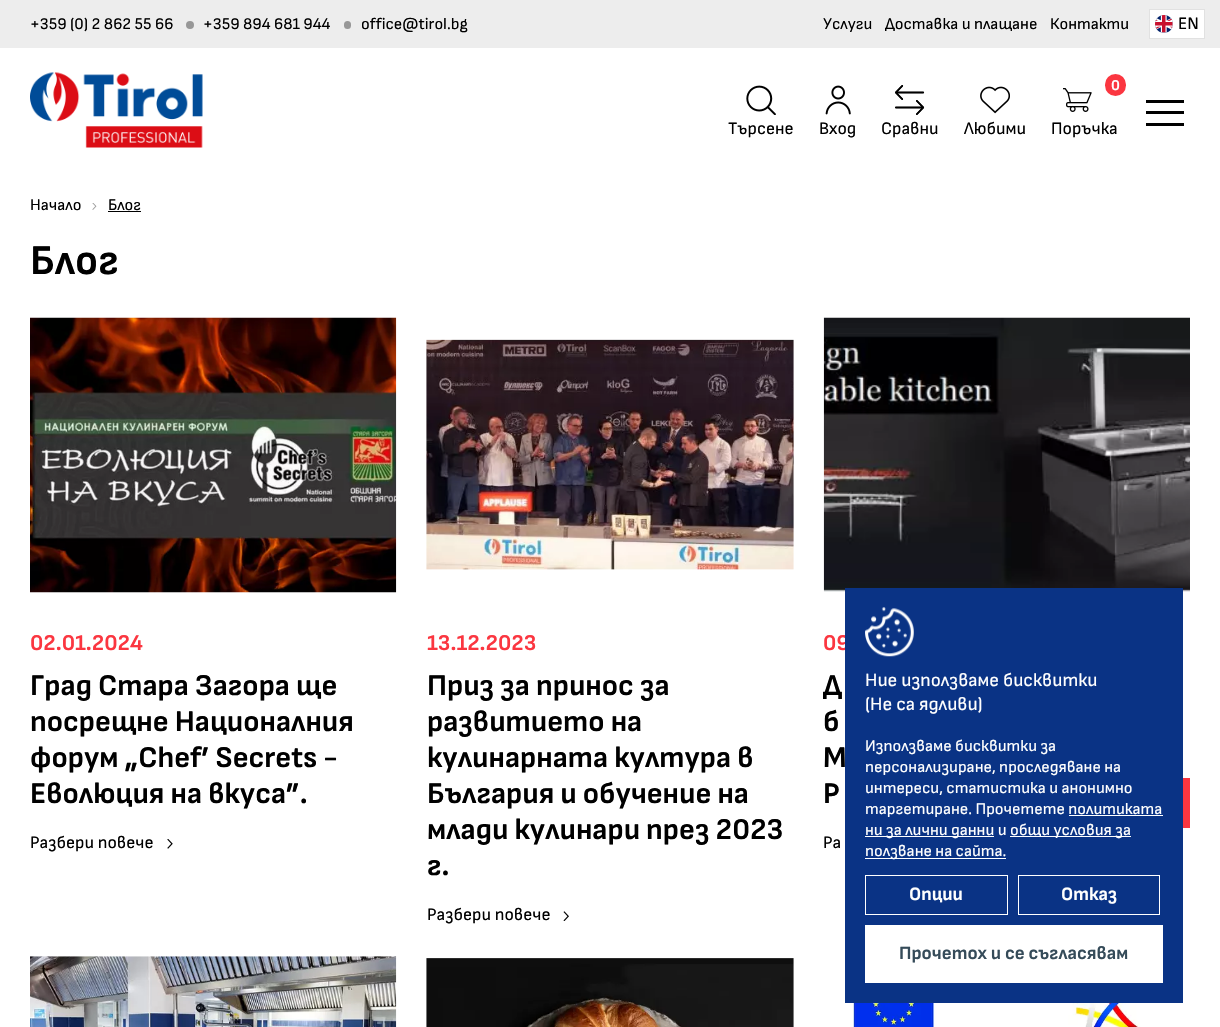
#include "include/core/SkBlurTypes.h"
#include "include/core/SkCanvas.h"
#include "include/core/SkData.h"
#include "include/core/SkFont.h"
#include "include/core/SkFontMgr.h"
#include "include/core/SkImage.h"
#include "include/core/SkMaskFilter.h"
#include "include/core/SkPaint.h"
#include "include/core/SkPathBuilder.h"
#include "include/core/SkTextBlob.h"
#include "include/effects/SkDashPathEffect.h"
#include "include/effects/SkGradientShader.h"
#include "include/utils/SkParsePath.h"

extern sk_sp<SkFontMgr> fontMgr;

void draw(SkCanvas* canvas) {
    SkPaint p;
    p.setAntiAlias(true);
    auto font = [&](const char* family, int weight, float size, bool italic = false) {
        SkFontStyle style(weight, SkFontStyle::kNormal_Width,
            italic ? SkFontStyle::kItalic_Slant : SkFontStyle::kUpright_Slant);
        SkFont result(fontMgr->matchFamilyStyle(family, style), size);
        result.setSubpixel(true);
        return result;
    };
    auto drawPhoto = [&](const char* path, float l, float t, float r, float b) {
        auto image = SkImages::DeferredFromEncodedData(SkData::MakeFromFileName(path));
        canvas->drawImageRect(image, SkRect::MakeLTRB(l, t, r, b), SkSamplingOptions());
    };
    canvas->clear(0xFFFFFFFF);
    p.setColor(0xFFEDEDED);
    canvas->drawRect(SkRect::MakeLTRB(0, 0, 1220, 48), p);
    auto font1 = font("Sofia Sans", 400, 16.25f);
    p.setColor(0xFF000000);
    canvas->drawString("+359 (0) 2 862 55 66", 30, 29, font1, p);
    p.setColor(0xFF979797);
    canvas->drawCircle(190, 25, 4, p);
    p.setColor(0xFF000000);
    canvas->drawString("+359 894 681 944", 203, 29, font1, p);
    p.setColor(0xFF979797);
    canvas->drawRoundRect(SkRect::MakeLTRB(344, 21, 351, 29), 3.5f, 3.5f, p);
    p.setColor(0xFF000000);
    {
        const struct { const char* s; float x, y; } items[] = {
            {"office@tirol.bg", 361, 29},
            {"Услуги", 823, 29},
            {"Доставка и плащане", 885, 29},
            {"Контакти", 1050, 29},
        };
        for (auto [s, x, y] : items) {
            canvas->drawString(s, x, y, font1, p);
        }
    }
    p.setColor(0xFFFFFFFF);
    canvas->drawRect(SkRect::MakeLTRB(1149.5f, 9.5f, 1204.5f, 38.5f), p);
    p.setStyle(SkPaint::kStroke_Style);
    p.setStrokeWidth(1);
    p.setColor(0xFFE1E1E1);
    canvas->drawRect(SkRect::MakeLTRB(1149.5f, 9.5f, 1204.5f, 38.5f), p);
    drawPhoto("media/1.png", 1155, 15, 1173, 33);
    auto font2 = font("Sofia Sans", 400, 17.5f);
    p.setStyle(SkPaint::kFill_Style);
    p.setColor(0xFF000000);
    canvas->drawString("EN", 1178, 29, font2, p);
    drawPhoto("media/2.png", 30, 72, 203, 148);
    drawPhoto("media/3.png", 746, 85, 776, 115);
    canvas->drawString("Търсене", 728, 134, font2, p);
    drawPhoto("media/4.png", 825, 85, 851, 115);
    canvas->drawString("Вход", 819, 134, font2, p);
    drawPhoto("media/5.png", 895, 85, 925, 115);
    canvas->drawString("Сравни", 881, 134, font2, p);
    drawPhoto("media/6.png", 980, 86, 1010, 114);
    canvas->drawString("Любими", 964, 134, font2, p);
    p.setColor(0xFFFB3640);
    canvas->drawRoundRect(SkRect::MakeLTRB(1105, 74, 1126, 96), 10.5f, 10.5f, p);
    auto font3 = font("Sofia Sans", 700, 15);
    p.setColor(0xFFFFFFFF);
    canvas->drawString("0", 1111, 90, font3, p);
    drawPhoto("media/7.png", 1063, 88, 1092, 112);
    p.setColor(0xFF000000);
    canvas->drawString("Поръчка", 1051, 134, font2, p);
    {
        const struct { float l, t, r, b; SkColor color; } items[] = {
            {1146, 100, 1184, 103, 0xFF000000},
            {1146, 111, 1184, 114, 0xFF000000},
            {1146, 123, 1184, 126, 0xFF000000},
        };
        for (auto [l, t, r, b, color] : items) {
            p.setColor(color);
            canvas->drawRect(SkRect::MakeLTRB(l, t, r, b), p);
        }
    }
    canvas->drawString("Начало", 30, 210, font1, p);
    drawPhoto("media/8.png", 92, 203, 97, 210);
    canvas->drawString("Блог", 108, 210, font1, p);
    canvas->drawRect(SkRect::MakeLTRB(108, 211, 141, 212), p);
    auto font4 = font("Sofia Sans", 700, 42.5f);
    canvas->drawString("Блог", 30, 274, font4, p);
    drawPhoto("media/9.png", 30, 317, 397, 593);
    auto font5 = font("Sofia Sans", 700, 22.5f);
    p.setColor(0xFFFB3640);
    canvas->drawString("02.01.2024", 30, 650, font5, p);
    auto font6 = font("Sofia Sans", 700, 30);
    p.setColor(0xFF000000);
    {
        const struct { const char* s; float x, y; } items[] = {
            {"Град Стара Загора ще", 30, 695},
            {"посрещне Националния", 30, 731},
            {"форум „Chef’ Secrets -", 30, 767},
            {"Еволюция на вкусa”.", 30, 803},
        };
        for (auto [s, x, y] : items) {
            canvas->drawString(s, x, y, font6, p);
        }
    }
    canvas->drawString("Разбери повече", 30, 848, font2, p);
    drawPhoto("media/10.png", 167, 839, 173, 849);
    drawPhoto("media/11.png", 426, 339, 794, 570);
    p.setColor(0xFFFB3640);
    canvas->drawString("13.12.2023", 427, 650, font5, p);
    p.setColor(0xFF000000);
    {
        const struct { const char* s; float x, y; } items[] = {
            {"Приз за принос за", 427, 695},
            {"развитието на", 427, 731},
            {"кулинарната култура в", 427, 767},
            {"България и обучение на", 427, 803},
            {"млади кулинари през 2023", 427, 839},
            {"г.", 427, 875},
        };
        for (auto [s, x, y] : items) {
            canvas->drawString(s, x, y, font6, p);
        }
    }
    canvas->drawString("Разбери повече", 427, 920, font2, p);
    drawPhoto("media/12.png", 563, 911, 569, 921);
    drawPhoto("media/13.png", 823, 317, 1190, 592);
    p.setColor(0xFFFB3640);
    canvas->drawString("09", 823, 650, font5, p);
    p.setColor(0xFF000000);
    {
        const struct { const char* s; float x, y; } items[] = {
            {"Д", 823, 695},
            {"б", 823, 731},
            {"M", 823, 767},
            {"P", 823, 803},
        };
        for (auto [s, x, y] : items) {
            canvas->drawString(s, x, y, font6, p);
        }
    }
    canvas->drawString("Ра", 823, 848, font2, p);
    drawPhoto("media/14.png", 30, 956, 397, 1027);
    drawPhoto("media/15.png", 426, 958, 794, 1027);
    drawPhoto("media/16.png", 853, 1003, 1141, 1027);
    p.setColor(0xFFFB3640);
    canvas->drawRect(SkRect::MakeLTRB(1183, 778, 1190, 828), p);
    p.setColor(0xFF0A3385);
    canvas->drawRect(SkRect::MakeLTRB(845, 588, 1183, 1003), p);
    drawPhoto("media/17.png", 865, 607, 914, 657);
    auto font7 = font("Sofia Sans", 400, 18.75f);
    p.setColor(0xFFFFFFFF);
    canvas->drawString("Ние използваме бисквитки", 865, 686, font7, p);
    canvas->drawString("(Не са ядливи)", 865, 710, font7, p);
    {
        const struct { const char* s; float x, y; } items[] = {
            {"Използваме бисквитки за", 865, 751},
            {"персонализиране, проследяване на", 865, 772},
            {"интереси, статистика и анонимно", 865, 793},
            {"таргетиране. Прочетете политиката", 865, 814},
        };
        for (auto [s, x, y] : items) {
            canvas->drawString(s, x, y, font1, p);
        }
    }
    canvas->drawRect(SkRect::MakeLTRB(865, 836, 994, 837), p);
    canvas->drawString("ни за лични данни и", 865, 835, font1, p);
    canvas->drawRect(SkRect::MakeLTRB(1069, 815, 1163, 816), p);
    canvas->drawRect(SkRect::MakeLTRB(1010, 836, 1131, 837), p);
    canvas->drawString("общи условия за", 1010, 835, font1, p);
    canvas->drawRect(SkRect::MakeLTRB(865, 858, 1006, 859), p);
    canvas->drawString("ползване на сайта.", 865, 856, font1, p);
    p.setStyle(SkPaint::kStroke_Style);
    canvas->drawRect(SkRect::MakeLTRB(865.5f, 875.5f, 1007.5f, 914.5f), p);
    auto font8 = font("Sofia Sans", 700, 18.75f);
    p.setStyle(SkPaint::kFill_Style);
    canvas->drawString("Опции", 909, 900, font8, p);
    p.setStyle(SkPaint::kStroke_Style);
    canvas->drawRect(SkRect::MakeLTRB(1018.5f, 875.5f, 1159.5f, 914.5f), p);
    p.setStyle(SkPaint::kFill_Style);
    canvas->drawString("Отказ", 1061, 900, font8, p);
    canvas->drawRect(SkRect::MakeLTRB(865, 925, 1163, 983), p);
    p.setColor(0xFF354B59);
    canvas->drawString("Прочетох и се съгласявам", 899, 959, font8, p);
}
